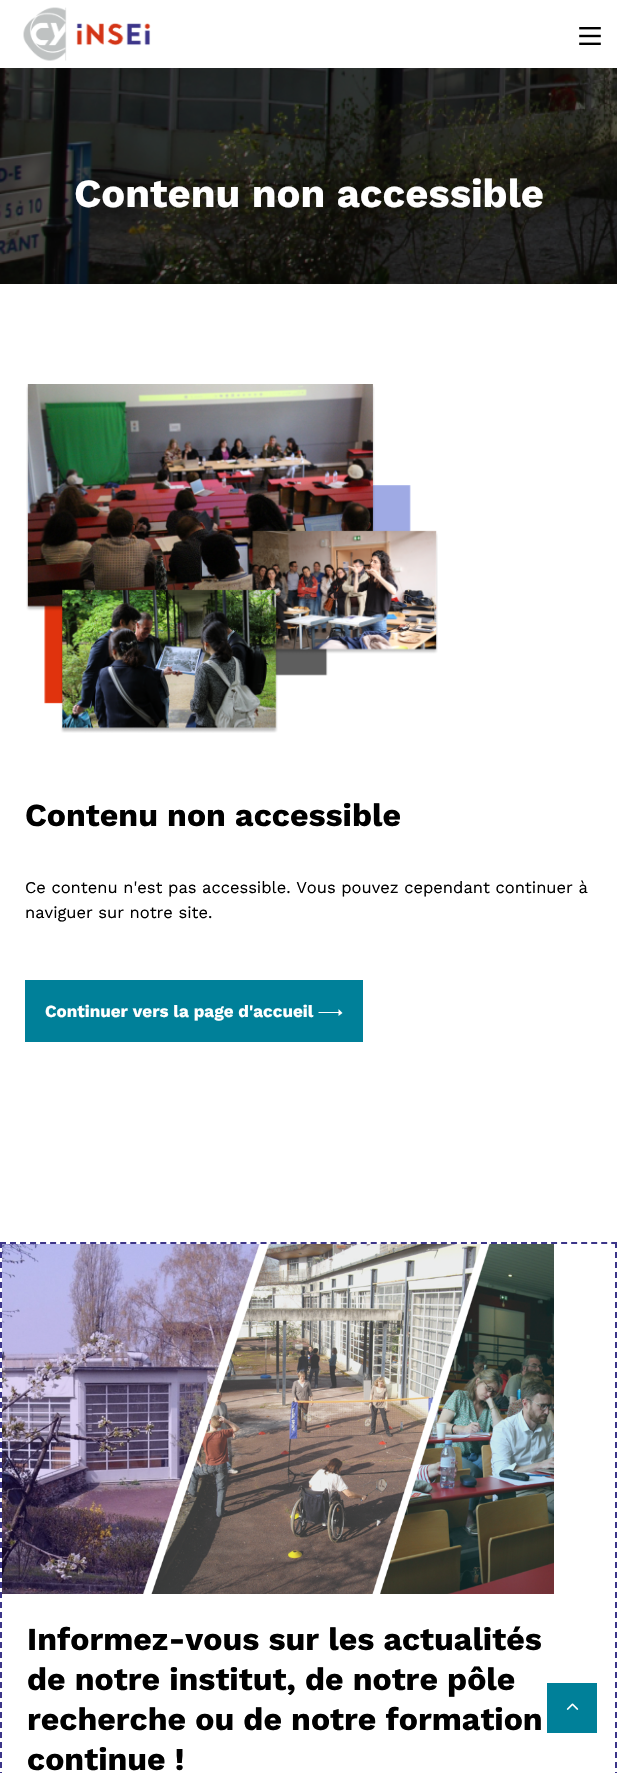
#include "include/core/SkBlurTypes.h"
#include "include/core/SkCanvas.h"
#include "include/core/SkData.h"
#include "include/core/SkFont.h"
#include "include/core/SkFontMgr.h"
#include "include/core/SkImage.h"
#include "include/core/SkMaskFilter.h"
#include "include/core/SkPaint.h"
#include "include/core/SkPathBuilder.h"
#include "include/core/SkTextBlob.h"
#include "include/effects/SkDashPathEffect.h"
#include "include/effects/SkGradientShader.h"
#include "include/utils/SkParsePath.h"

extern sk_sp<SkFontMgr> fontMgr;

void draw(SkCanvas* canvas) {
    SkPaint p;
    p.setAntiAlias(true);
    auto font = [&](const char* family, int weight, float size, bool italic = false) {
        SkFontStyle style(weight, SkFontStyle::kNormal_Width,
            italic ? SkFontStyle::kItalic_Slant : SkFontStyle::kUpright_Slant);
        SkFont result(fontMgr->matchFamilyStyle(family, style), size);
        result.setSubpixel(true);
        return result;
    };
    auto drawPhoto = [&](const char* path, float l, float t, float r, float b) {
        auto image = SkImages::DeferredFromEncodedData(SkData::MakeFromFileName(path));
        canvas->drawImageRect(image, SkRect::MakeLTRB(l, t, r, b), SkSamplingOptions());
    };
    canvas->clear(0xFFFFFFFF);
    drawPhoto("media/1.png", 23, 7, 151, 61);
    drawPhoto("media/2.png", 579, 27, 601, 45);
    drawPhoto("media/3.png", 0, 68, 617, 284);
    auto font1 = font("Work Sans", 700, 40);
    p.setColor(0xFFFFFFFF);
    canvas->drawString("Contenu non accessible", 74, 207, font1, p);
    drawPhoto("media/4.png", 26, 384, 438, 733);
    auto font2 = font("Work Sans", 700, 32);
    p.setColor(0xFF000000);
    canvas->drawString("Contenu non accessible", 25, 826, font2, p);
    auto font3 = font("Work Sans", 400, 16.5f);
    canvas->drawString("Ce contenu n'est pas accessible. Vous pouvez cependant continuer à", 25, 893, font3, p);
    canvas->drawString("naviguer sur notre site.", 25, 918, font3, p);
    p.setColor(0xFF008099);
    canvas->drawRect(SkRect::MakeLTRB(25, 980, 363, 1042), p);
    auto font4 = font("Work Sans", 700, 17);
    p.setColor(0xFFFFFFFF);
    canvas->drawString("Continuer vers la page d'accueil", 45, 1017, font4, p);
    canvas->drawPath(SkPathBuilder(SkPathFillType::kEvenOdd).moveTo(338.5f, 1016).lineTo(342.5f, 1013).lineTo(338.5f, 1009).lineTo(338.5f, 1012).lineTo(318.5f, 1012).lineTo(318.5f, 1013).lineTo(338.5f, 1013).close().detach(), p);
    p.setStyle(SkPaint::kStroke_Style);
    p.setStrokeWidth(2);
    p.setColor(0xFF3C3589);
    p.setPathEffect(SkDashPathEffect::Make({{6, 4.02f}}, 0));
    canvas->drawPath(SkPathBuilder().moveTo(0, 1243).lineTo(617, 1243).detach(), p);
    p.setPathEffect(nullptr);
    p.setPathEffect(SkDashPathEffect::Make({{6, 4}}, 0));
    canvas->drawPath(SkPathBuilder().moveTo(616, 1242).lineTo(616, 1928).detach(), p);
    p.setPathEffect(nullptr);
    p.setPathEffect(SkDashPathEffect::Make({{6, 4}}, 0));
    canvas->drawPath(SkPathBuilder().moveTo(1, 1242).lineTo(1, 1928).detach(), p);
    p.setPathEffect(nullptr);
    drawPhoto("media/5.png", 2, 1244, 554, 1594);
    p.setStyle(SkPaint::kFill_Style);
    p.setColor(0xFF000000);
    {
        const struct { const char* s; float x, y; } items[] = {
            {"Informez-vous sur les actualités", 27, 1650},
            {"de notre institut, de notre pôle", 27, 1690},
            {"recherche ou de notre formation", 27, 1730},
            {"continue !", 27, 1770},
        };
        for (auto [s, x, y] : items) {
            canvas->drawString(s, x, y, font2, p);
        }
    }
    p.setColor(0xFF008099);
    canvas->drawRect(SkRect::MakeLTRB(547, 1683, 597, 1733), p);
    drawPhoto("media/6.png", 566, 1703, 579, 1710);
}
